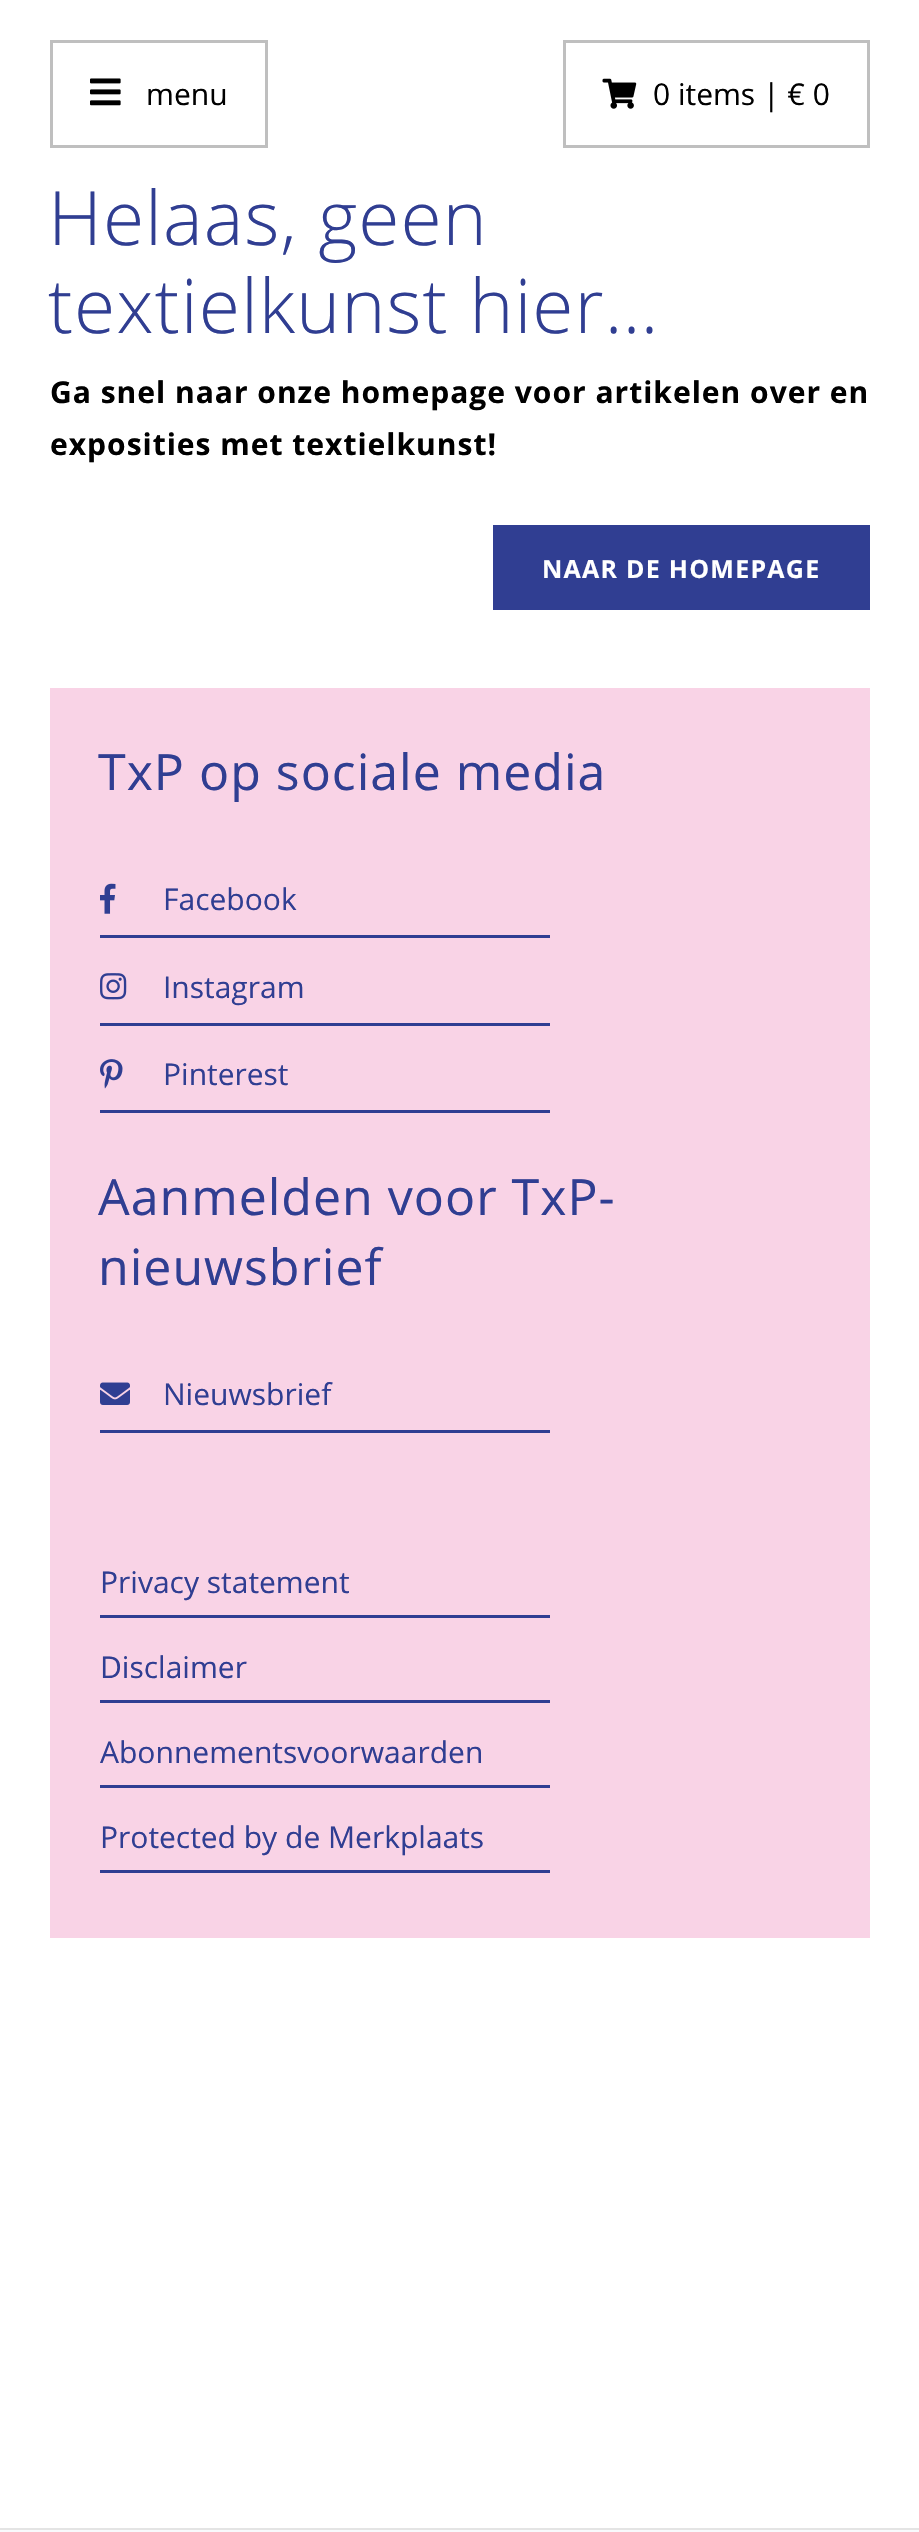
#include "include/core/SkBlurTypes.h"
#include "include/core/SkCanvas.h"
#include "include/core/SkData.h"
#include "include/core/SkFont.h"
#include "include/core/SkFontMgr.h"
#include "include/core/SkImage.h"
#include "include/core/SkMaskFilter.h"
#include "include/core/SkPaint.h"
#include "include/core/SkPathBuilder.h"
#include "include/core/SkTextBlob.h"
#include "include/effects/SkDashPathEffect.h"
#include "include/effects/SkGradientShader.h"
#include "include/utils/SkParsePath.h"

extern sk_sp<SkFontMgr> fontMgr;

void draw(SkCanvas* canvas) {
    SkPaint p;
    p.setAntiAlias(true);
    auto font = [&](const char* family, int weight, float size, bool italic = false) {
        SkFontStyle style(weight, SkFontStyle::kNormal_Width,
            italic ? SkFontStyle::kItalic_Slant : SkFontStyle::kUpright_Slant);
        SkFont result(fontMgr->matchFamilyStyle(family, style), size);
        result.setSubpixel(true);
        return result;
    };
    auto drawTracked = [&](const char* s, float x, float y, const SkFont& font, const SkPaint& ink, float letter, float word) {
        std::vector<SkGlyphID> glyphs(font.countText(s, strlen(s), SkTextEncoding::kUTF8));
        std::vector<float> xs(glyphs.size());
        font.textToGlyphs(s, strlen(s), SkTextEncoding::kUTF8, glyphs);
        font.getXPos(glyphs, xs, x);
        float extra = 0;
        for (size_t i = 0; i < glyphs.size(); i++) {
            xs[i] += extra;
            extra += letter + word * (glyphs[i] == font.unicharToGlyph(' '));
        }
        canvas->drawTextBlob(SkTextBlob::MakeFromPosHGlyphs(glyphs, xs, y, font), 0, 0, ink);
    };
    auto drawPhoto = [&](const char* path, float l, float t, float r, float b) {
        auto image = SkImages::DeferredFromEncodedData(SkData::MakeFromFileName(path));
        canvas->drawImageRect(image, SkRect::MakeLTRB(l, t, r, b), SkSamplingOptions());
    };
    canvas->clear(0xFFFFFFFF);
    p.setStyle(SkPaint::kStroke_Style);
    p.setStrokeWidth(3);
    p.setColor(0xFFBFBFBF);
    canvas->drawRect(SkRect::MakeLTRB(51.5f, 41.5f, 266.5f, 146.5f), p);
    drawPhoto("media/1.png", 90, 78, 121, 106);
    auto font1 = font("Open Sans", 400, 30);
    p.setStyle(SkPaint::kFill_Style);
    p.setColor(0xFF000000);
    canvas->drawString("menu", 146, 105, font1, p);
    p.setStyle(SkPaint::kStroke_Style);
    p.setColor(0xFFBFBFBF);
    canvas->drawRect(SkRect::MakeLTRB(564.5f, 41.5f, 868.5f, 146.5f), p);
    drawPhoto("media/2.png", 602, 78, 637, 109);
    p.setStyle(SkPaint::kFill_Style);
    p.setColor(0xFF000000);
    canvas->drawString("0 items | € 0", 653, 105, font1, p);
    auto font2 = font("Open Sans", 300, 75);
    p.setColor(0xFF303E92);
    drawTracked("Helaas, geen", 48, 245, font2, p, 1, 0);
    drawTracked("textielkunst hier…", 48, 333, font2, p, 1, 0);
    auto font3 = font("Open Sans", 700, 30);
    p.setColor(0xFF000000);
    drawTracked("Ga snel naar onze homepage voor artikelen over en", 50, 403, font3, p, 1, 0);
    drawTracked("exposities met textielkunst!", 50, 455, font3, p, 1, 0);
    p.setColor(0xFF303E92);
    canvas->drawRect(SkRect::MakeLTRB(493, 525, 870, 610), p);
    auto font4 = font("Open Sans", 700, 25);
    p.setColor(0xFFFFFFFF);
    drawTracked("NAAR DE HOMEPAGE", 542, 578, font4, p, 1.25f, 0);
    p.setColor(0xFFF9D3E6);
    canvas->drawRect(SkRect::MakeLTRB(50, 688, 870, 1938), p);
    auto font5 = font("Open Sans", 400, 50);
    p.setColor(0xFF303E92);
    drawTracked("TxP op sociale media", 98, 790, font5, p, 1, 0);
    canvas->drawRect(SkRect::MakeLTRB(100, 935, 550, 938), p);
    drawPhoto("media/3.png", 100, 883, 116, 914);
    canvas->drawString("Facebook", 163, 910, font1, p);
    canvas->drawRect(SkRect::MakeLTRB(100, 1023, 550, 1026), p);
    drawPhoto("media/4.png", 100, 973, 127, 1000);
    canvas->drawString("Instagram", 163, 998, font1, p);
    canvas->drawRect(SkRect::MakeLTRB(100, 1110, 550, 1113), p);
    drawPhoto("media/5.png", 100, 1059, 123, 1089);
    canvas->drawString("Pinterest", 163, 1085, font1, p);
    drawTracked("Aanmelden voor TxP-", 98, 1215, font5, p, 1, 0);
    drawTracked("nieuwsbrief", 98, 1285, font5, p, 1, 0);
    canvas->drawRect(SkRect::MakeLTRB(100, 1430, 550, 1433), p);
    drawPhoto("media/6.png", 100, 1382, 130, 1405);
    canvas->drawString("Nieuwsbrief", 163, 1405, font1, p);
    canvas->drawRect(SkRect::MakeLTRB(100, 1615, 550, 1618), p);
    canvas->drawString("Privacy statement", 100, 1593, font1, p);
    canvas->drawRect(SkRect::MakeLTRB(100, 1700, 550, 1703), p);
    canvas->drawString("Disclaimer", 100, 1678, font1, p);
    canvas->drawRect(SkRect::MakeLTRB(100, 1785, 550, 1788), p);
    canvas->drawString("Abonnementsvoorwaarden", 100, 1763, font1, p);
    canvas->drawRect(SkRect::MakeLTRB(100, 1870, 550, 1873), p);
    canvas->drawString("Protected by de Merkplaats", 100, 1848, font1, p);
    p.setColor(0xFFE4E4E4);
    canvas->drawRect(SkRect::MakeLTRB(0, 2528, 919, 2530), p);
    p.setColor(0xFFF9FAFC);
    canvas->drawRect(SkRect::MakeLTRB(0, 2530, 919, 2532), p);
}
